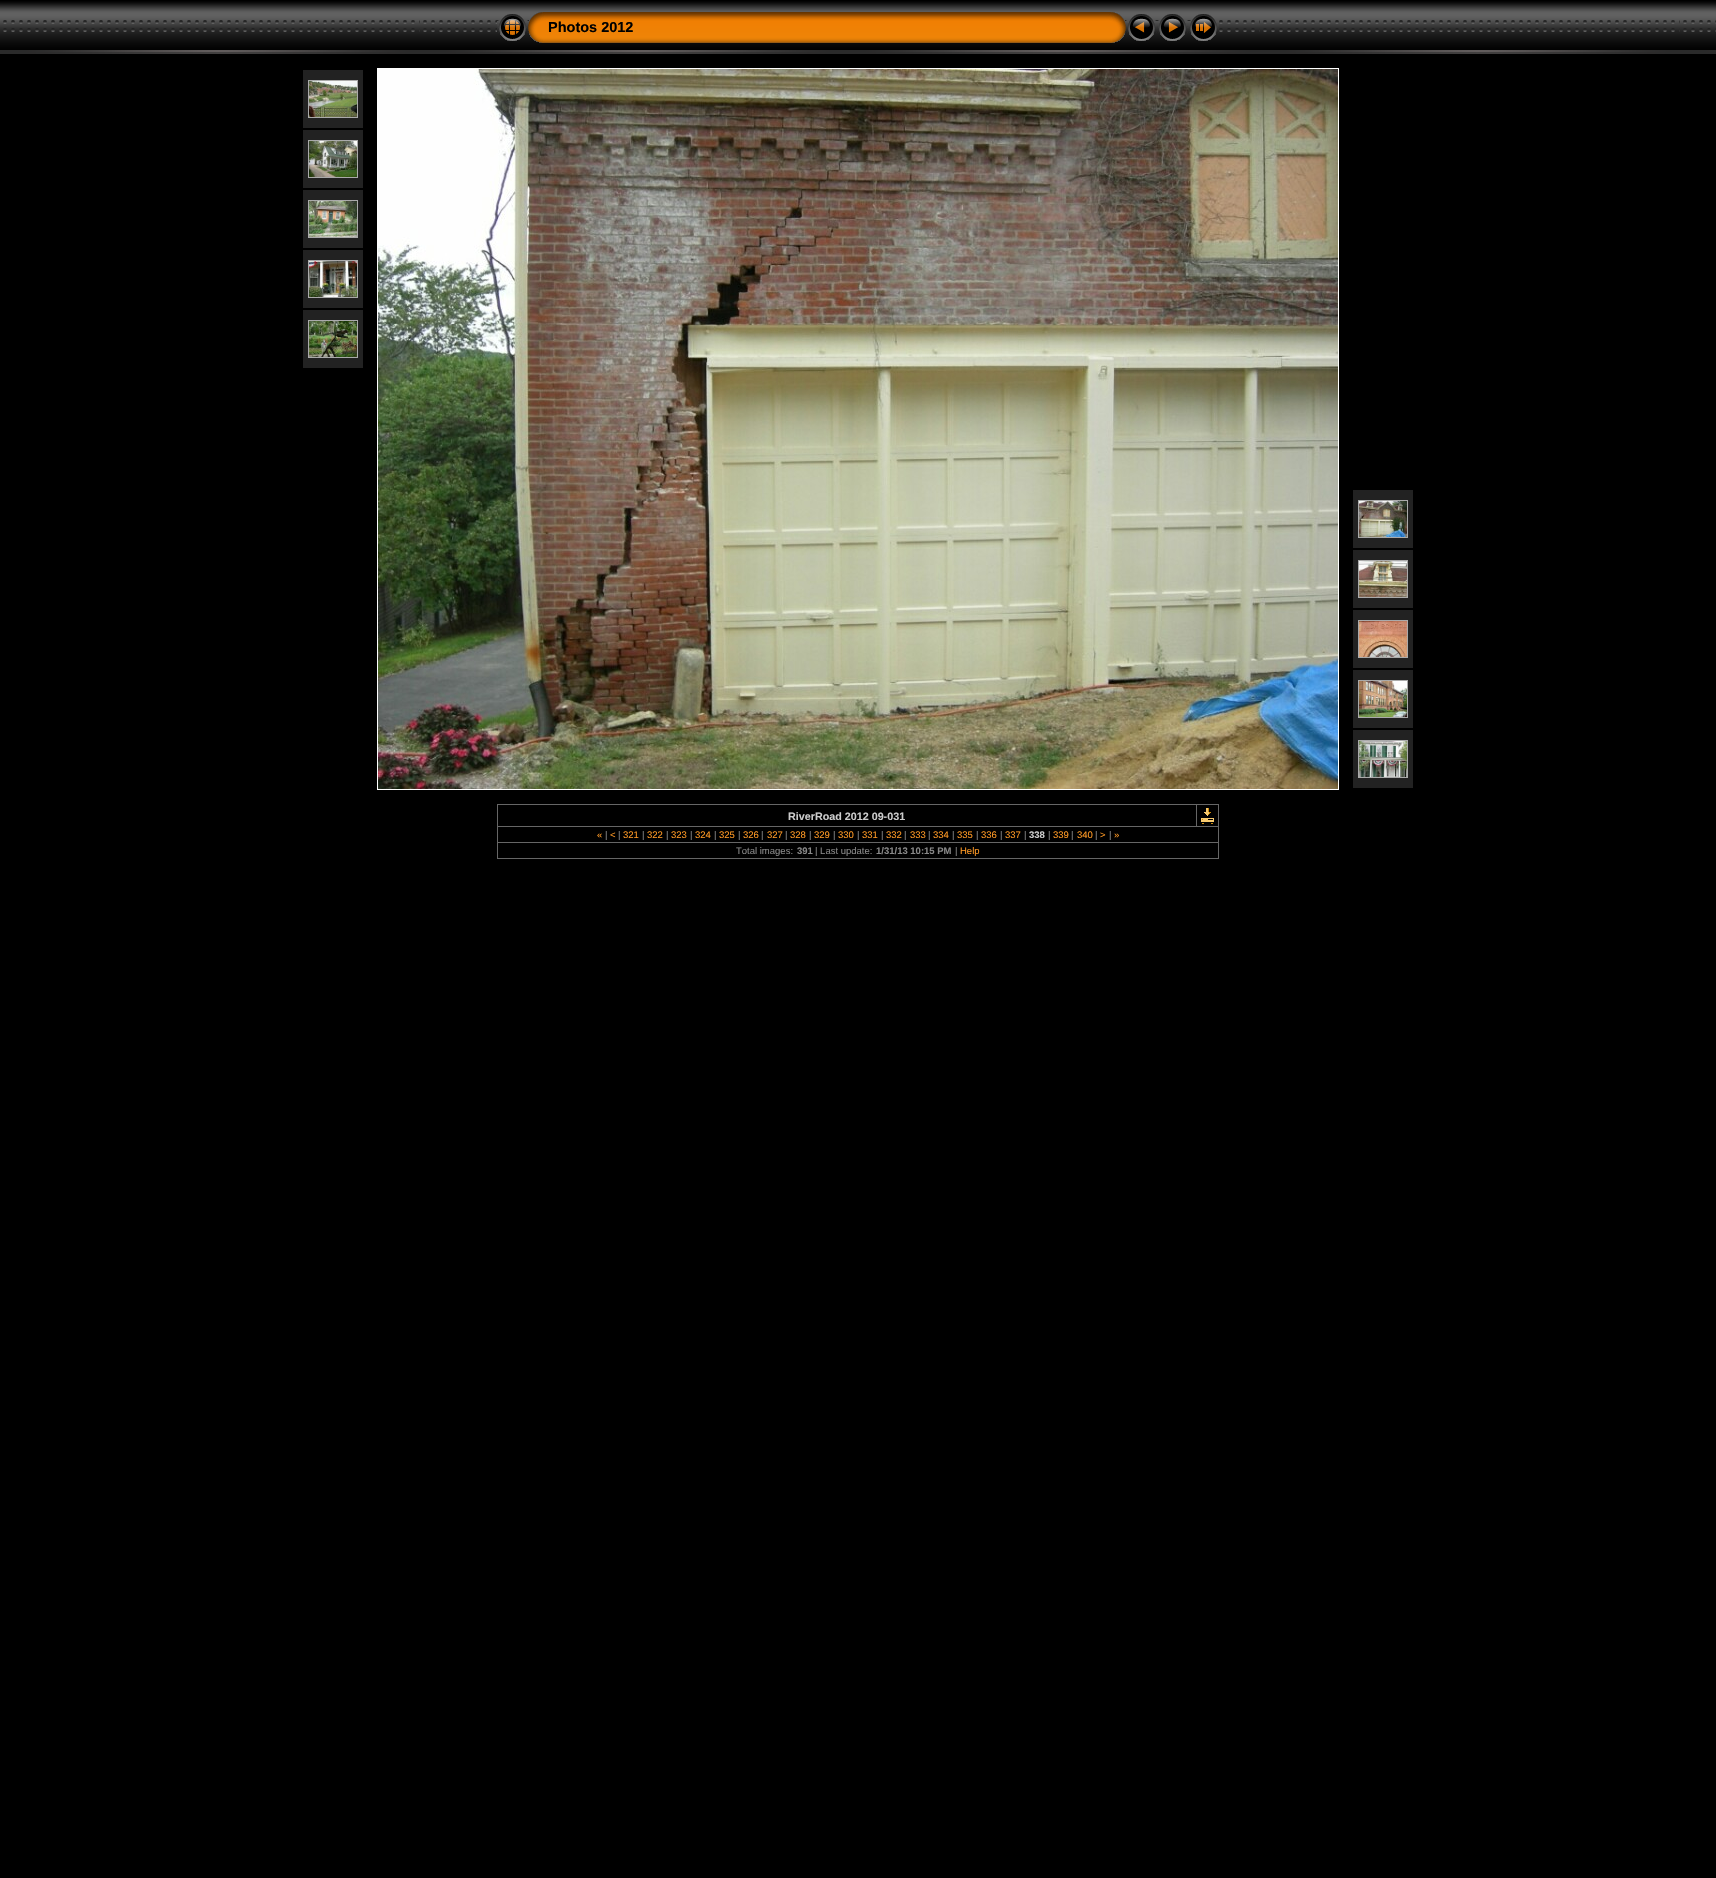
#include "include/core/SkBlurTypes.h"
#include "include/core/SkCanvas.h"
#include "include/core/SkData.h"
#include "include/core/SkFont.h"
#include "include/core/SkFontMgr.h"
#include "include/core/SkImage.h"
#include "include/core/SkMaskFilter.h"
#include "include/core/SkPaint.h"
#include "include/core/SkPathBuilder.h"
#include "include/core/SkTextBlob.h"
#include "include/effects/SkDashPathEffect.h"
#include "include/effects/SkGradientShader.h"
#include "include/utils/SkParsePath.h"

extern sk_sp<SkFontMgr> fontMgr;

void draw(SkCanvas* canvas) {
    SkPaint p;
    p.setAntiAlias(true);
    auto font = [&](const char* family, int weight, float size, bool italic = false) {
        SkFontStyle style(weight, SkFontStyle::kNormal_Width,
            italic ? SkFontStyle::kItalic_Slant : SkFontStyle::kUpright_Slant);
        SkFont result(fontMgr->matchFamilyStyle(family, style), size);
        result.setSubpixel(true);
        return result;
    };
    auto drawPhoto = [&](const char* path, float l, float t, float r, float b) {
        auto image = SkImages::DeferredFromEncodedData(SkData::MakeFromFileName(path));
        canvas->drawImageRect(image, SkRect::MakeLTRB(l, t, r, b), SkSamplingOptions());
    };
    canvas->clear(0xFF000000);
    drawPhoto("media/1.png", 0, 1, 1716, 54);
    drawPhoto("media/2.png", 497, 14, 528, 41);
    drawPhoto("media/3.png", 528, 12, 548, 43);
    drawPhoto("media/4.png", 548, 12, 1106, 43);
    auto font1 = font("Liberation Sans", 700, 14.5f);
    p.setColor(0xFF000000);
    canvas->drawString("Photos 2012", 548, 32, font1, p);
    drawPhoto("media/5.png", 1106, 12, 1126, 43);
    drawPhoto("media/6.png", 1126, 14, 1157, 41);
    drawPhoto("media/7.png", 1157, 14, 1188, 41);
    drawPhoto("media/8.png", 1188, 14, 1219, 41);
    p.setColor(0xFF222222);
    canvas->drawRect(SkRect::MakeLTRB(303, 70, 363, 128), p);
    p.setStyle(SkPaint::kStroke_Style);
    p.setStrokeWidth(1);
    p.setColor(0xFFAAAAAA);
    canvas->drawRect(SkRect::MakeLTRB(308.5f, 80.5f, 357.5f, 117.5f), p);
    drawPhoto("media/9.png", 309, 81, 357, 117);
    p.setStyle(SkPaint::kFill_Style);
    p.setColor(0xFF222222);
    canvas->drawRect(SkRect::MakeLTRB(303, 130, 363, 188), p);
    p.setStyle(SkPaint::kStroke_Style);
    p.setColor(0xFFAAAAAA);
    canvas->drawRect(SkRect::MakeLTRB(308.5f, 140.5f, 357.5f, 177.5f), p);
    drawPhoto("media/10.png", 309, 141, 357, 177);
    p.setStyle(SkPaint::kFill_Style);
    p.setColor(0xFF222222);
    canvas->drawRect(SkRect::MakeLTRB(303, 190, 363, 248), p);
    p.setStyle(SkPaint::kStroke_Style);
    p.setColor(0xFFAAAAAA);
    canvas->drawRect(SkRect::MakeLTRB(308.5f, 200.5f, 357.5f, 237.5f), p);
    drawPhoto("media/11.png", 309, 201, 357, 237);
    p.setStyle(SkPaint::kFill_Style);
    p.setColor(0xFF222222);
    canvas->drawRect(SkRect::MakeLTRB(303, 250, 363, 308), p);
    p.setStyle(SkPaint::kStroke_Style);
    p.setColor(0xFFAAAAAA);
    canvas->drawRect(SkRect::MakeLTRB(308.5f, 260.5f, 357.5f, 297.5f), p);
    drawPhoto("media/12.png", 309, 261, 357, 297);
    p.setStyle(SkPaint::kFill_Style);
    p.setColor(0xFF222222);
    canvas->drawRect(SkRect::MakeLTRB(303, 310, 363, 368), p);
    p.setStyle(SkPaint::kStroke_Style);
    p.setColor(0xFFAAAAAA);
    canvas->drawRect(SkRect::MakeLTRB(308.5f, 320.5f, 357.5f, 357.5f), p);
    drawPhoto("media/13.png", 309, 321, 357, 357);
    p.setColor(0xFFFFFFFF);
    canvas->drawRect(SkRect::MakeLTRB(377.5f, 68.5f, 1338.5f, 789.5f), p);
    drawPhoto("media/14.png", 378, 69, 1338, 789);
    p.setStyle(SkPaint::kFill_Style);
    p.setColor(0xFF222222);
    canvas->drawRect(SkRect::MakeLTRB(1353, 490, 1413, 548), p);
    p.setStyle(SkPaint::kStroke_Style);
    p.setColor(0xFFAAAAAA);
    canvas->drawRect(SkRect::MakeLTRB(1358.5f, 500.5f, 1407.5f, 537.5f), p);
    drawPhoto("media/15.png", 1359, 501, 1407, 537);
    p.setStyle(SkPaint::kFill_Style);
    p.setColor(0xFF222222);
    canvas->drawRect(SkRect::MakeLTRB(1353, 550, 1413, 608), p);
    p.setStyle(SkPaint::kStroke_Style);
    p.setColor(0xFFAAAAAA);
    canvas->drawRect(SkRect::MakeLTRB(1358.5f, 560.5f, 1407.5f, 597.5f), p);
    drawPhoto("media/16.png", 1359, 561, 1407, 597);
    p.setStyle(SkPaint::kFill_Style);
    p.setColor(0xFF222222);
    canvas->drawRect(SkRect::MakeLTRB(1353, 610, 1413, 668), p);
    p.setStyle(SkPaint::kStroke_Style);
    p.setColor(0xFFAAAAAA);
    canvas->drawRect(SkRect::MakeLTRB(1358.5f, 620.5f, 1407.5f, 657.5f), p);
    drawPhoto("media/17.png", 1359, 621, 1407, 657);
    p.setStyle(SkPaint::kFill_Style);
    p.setColor(0xFF222222);
    canvas->drawRect(SkRect::MakeLTRB(1353, 670, 1413, 728), p);
    p.setStyle(SkPaint::kStroke_Style);
    p.setColor(0xFFAAAAAA);
    canvas->drawRect(SkRect::MakeLTRB(1358.5f, 680.5f, 1407.5f, 717.5f), p);
    drawPhoto("media/18.png", 1359, 681, 1407, 717);
    p.setStyle(SkPaint::kFill_Style);
    p.setColor(0xFF222222);
    canvas->drawRect(SkRect::MakeLTRB(1353, 730, 1413, 788), p);
    p.setStyle(SkPaint::kStroke_Style);
    p.setColor(0xFFAAAAAA);
    canvas->drawRect(SkRect::MakeLTRB(1358.5f, 740.5f, 1407.5f, 777.5f), p);
    drawPhoto("media/19.png", 1359, 741, 1407, 777);
    p.setStyle(SkPaint::kFill_Style);
    {
        const struct { float l, t, r, b; SkColor color; } items[] = {
            {497, 804, 1219, 805, 0xFF666666},
            {1218, 804, 1219, 859, 0xFF666666},
            {497, 858, 1219, 859, 0xFF666666},
            {497, 804, 498, 859, 0xFF666666},
        };
        for (auto [l, t, r, b, color] : items) {
            p.setColor(color);
            canvas->drawRect(SkRect::MakeLTRB(l, t, r, b), p);
        }
    }
    auto font2 = font("Liberation Sans", 700, 10.75f);
    p.setColor(0xFFCCCCCC);
    canvas->drawString("RiverRoad 2012 09-031", 788, 820, font2, p);
    p.setColor(0xFF666666);
    canvas->drawRect(SkRect::MakeLTRB(497, 826, 1219, 827), p);
    canvas->drawRect(SkRect::MakeLTRB(1196, 804, 1197, 827), p);
    drawPhoto("media/20.png", 1201, 808, 1214, 824);
    auto font3 = font("Liberation Sans", 400, 9.5f);
    p.setColor(0xFFFF9924);
    canvas->drawString("«", 597, 838, font3, p);
    p.setColor(0xFF888888);
    canvas->drawString("|", 605, 838, font3, p);
    p.setColor(0xFFFF9924);
    canvas->drawString("<", 610, 838, font3, p);
    p.setColor(0xFF888888);
    canvas->drawString("|", 618, 838, font3, p);
    p.setColor(0xFFFF9924);
    canvas->drawString("321", 623, 838, font3, p);
    p.setColor(0xFF888888);
    canvas->drawString("|", 642, 838, font3, p);
    p.setColor(0xFFFF9924);
    canvas->drawString("322", 647, 838, font3, p);
    p.setColor(0xFF888888);
    canvas->drawString("|", 666, 838, font3, p);
    p.setColor(0xFFFF9924);
    canvas->drawString("323", 671, 838, font3, p);
    p.setColor(0xFF888888);
    canvas->drawString("|", 690, 838, font3, p);
    p.setColor(0xFFFF9924);
    canvas->drawString("324", 695, 838, font3, p);
    p.setColor(0xFF888888);
    canvas->drawString("|", 714, 838, font3, p);
    p.setColor(0xFFFF9924);
    canvas->drawString("325", 719, 838, font3, p);
    p.setColor(0xFF888888);
    canvas->drawString("|", 738, 838, font3, p);
    p.setColor(0xFFFF9924);
    canvas->drawString("326", 743, 838, font3, p);
    p.setColor(0xFF888888);
    canvas->drawString("|", 761, 838, font3, p);
    p.setColor(0xFFFF9924);
    canvas->drawString("327", 767, 838, font3, p);
    p.setColor(0xFF888888);
    canvas->drawString("|", 785, 838, font3, p);
    p.setColor(0xFFFF9924);
    canvas->drawString("328", 790, 838, font3, p);
    p.setColor(0xFF888888);
    canvas->drawString("|", 809, 838, font3, p);
    p.setColor(0xFFFF9924);
    canvas->drawString("329", 814, 838, font3, p);
    p.setColor(0xFF888888);
    canvas->drawString("|", 833, 838, font3, p);
    p.setColor(0xFFFF9924);
    canvas->drawString("330", 838, 838, font3, p);
    p.setColor(0xFF888888);
    canvas->drawString("|", 857, 838, font3, p);
    p.setColor(0xFFFF9924);
    canvas->drawString("331", 862, 838, font3, p);
    p.setColor(0xFF888888);
    canvas->drawString("|", 881, 838, font3, p);
    p.setColor(0xFFFF9924);
    canvas->drawString("332", 886, 838, font3, p);
    p.setColor(0xFF888888);
    canvas->drawString("|", 904, 838, font3, p);
    p.setColor(0xFFFF9924);
    canvas->drawString("333", 910, 838, font3, p);
    p.setColor(0xFF888888);
    canvas->drawString("|", 928, 838, font3, p);
    p.setColor(0xFFFF9924);
    canvas->drawString("334", 933, 838, font3, p);
    p.setColor(0xFF888888);
    canvas->drawString("|", 952, 838, font3, p);
    p.setColor(0xFFFF9924);
    canvas->drawString("335", 957, 838, font3, p);
    p.setColor(0xFF888888);
    canvas->drawString("|", 976, 838, font3, p);
    p.setColor(0xFFFF9924);
    canvas->drawString("336", 981, 838, font3, p);
    p.setColor(0xFF888888);
    canvas->drawString("|", 1000, 838, font3, p);
    p.setColor(0xFFFF9924);
    canvas->drawString("337", 1005, 838, font3, p);
    p.setColor(0xFF888888);
    canvas->drawString("|", 1024, 838, font3, p);
    auto font4 = font("Liberation Sans", 700, 9.5f);
    p.setColor(0xFFCCCCCC);
    canvas->drawString("338", 1029, 838, font4, p);
    p.setColor(0xFF888888);
    canvas->drawString("|", 1048, 838, font3, p);
    p.setColor(0xFFFF9924);
    canvas->drawString("339", 1053, 838, font3, p);
    p.setColor(0xFF888888);
    canvas->drawString("|", 1071, 838, font3, p);
    p.setColor(0xFFFF9924);
    canvas->drawString("340", 1077, 838, font3, p);
    p.setColor(0xFF888888);
    canvas->drawString("|", 1095, 838, font3, p);
    p.setColor(0xFFFF9924);
    canvas->drawString(">", 1100, 838, font3, p);
    p.setColor(0xFF888888);
    canvas->drawString("|", 1109, 838, font3, p);
    p.setColor(0xFFFF9924);
    canvas->drawString("»", 1114, 838, font3, p);
    p.setColor(0xFF666666);
    canvas->drawRect(SkRect::MakeLTRB(497, 842, 1219, 843), p);
    p.setColor(0xFF888888);
    canvas->drawString("Total images:", 736, 854, font3, p);
    canvas->drawString("391", 797, 854, font4, p);
    canvas->drawString("| Last update:", 815, 854, font3, p);
    canvas->drawString("1/31/13 10:15 PM", 876, 854, font4, p);
    canvas->drawString("|", 955, 854, font3, p);
    p.setColor(0xFFFF9924);
    canvas->drawString("Help", 960, 854, font3, p);
}
